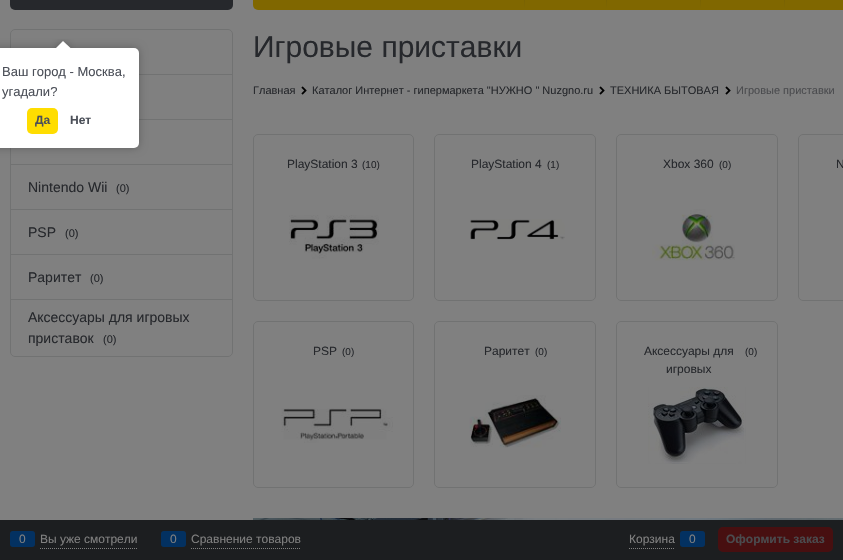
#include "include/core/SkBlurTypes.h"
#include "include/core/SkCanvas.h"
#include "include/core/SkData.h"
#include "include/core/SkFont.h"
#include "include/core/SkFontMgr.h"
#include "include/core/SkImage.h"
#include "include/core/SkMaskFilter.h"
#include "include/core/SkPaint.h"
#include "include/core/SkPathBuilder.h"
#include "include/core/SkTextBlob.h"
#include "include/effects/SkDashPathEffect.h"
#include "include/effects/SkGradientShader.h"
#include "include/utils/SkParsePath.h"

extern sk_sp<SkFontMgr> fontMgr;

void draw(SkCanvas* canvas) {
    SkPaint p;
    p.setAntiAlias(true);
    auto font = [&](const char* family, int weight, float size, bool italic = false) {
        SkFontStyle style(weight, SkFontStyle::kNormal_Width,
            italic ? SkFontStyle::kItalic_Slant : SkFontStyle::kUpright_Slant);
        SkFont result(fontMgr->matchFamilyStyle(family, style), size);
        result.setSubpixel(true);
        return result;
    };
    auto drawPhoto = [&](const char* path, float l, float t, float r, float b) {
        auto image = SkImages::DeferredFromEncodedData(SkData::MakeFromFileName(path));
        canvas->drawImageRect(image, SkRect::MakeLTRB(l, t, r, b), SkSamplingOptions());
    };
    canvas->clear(0xFF808080);
    p.setColor(0xFF26282C);
    canvas->drawRoundRect(SkRect::MakeLTRB(10, -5, 233, 10), 5, 5, p);
    {
        const SkColor colors[] = {0xFF806F00, 0xFF806700};
        const float stops[] = {0, 0.5f};
        const SkPoint ends[] = {{607, -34}, {607, 10}};
        p.setShader(SkGradientShader::MakeLinear(ends, colors, stops, 2, SkTileMode::kClamp));
        p.setAlpha(255);
    }
    canvas->drawRoundRect(SkRect::MakeLTRB(253, -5, 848, 10), 5, 5, p);
    {
        const SkColor colors[] = {0xFF594A0B, 0xFF5F4F0A, 0xFF745E04, 0xFF7F6701, 0xFF806702, 0xFF806700};
        const float stops[] = {0, 0.17f, 0.61f, 0.96f, 0.98f, 1};
        const SkPoint ends[] = {{525, -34}, {525, 10}};
        p.setShader(SkGradientShader::MakeLinear(ends, colors, stops, 6, SkTileMode::kClamp));
        p.setAlpha(255);
    }
    canvas->drawRect(SkRect::MakeLTRB(524, 0, 525, 10), p);
    {
        const SkColor colors[] = {0xFF594A0B, 0xFF5F4F0A, 0xFF745E04, 0xFF7F6701, 0xFF806702, 0xFF806700};
        const float stops[] = {0, 0.17f, 0.61f, 0.96f, 0.98f, 1};
        const SkPoint ends[] = {{607, -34}, {607, 10}};
        p.setShader(SkGradientShader::MakeLinear(ends, colors, stops, 6, SkTileMode::kClamp));
        p.setAlpha(255);
    }
    canvas->drawRect(SkRect::MakeLTRB(606, 0, 607, 10), p);
    {
        const SkColor colors[] = {0xFF594A0B, 0xFF5F4F0A, 0xFF745E04, 0xFF7F6701, 0xFF806702, 0xFF806700};
        const float stops[] = {0, 0.17f, 0.61f, 0.96f, 0.98f, 1};
        const SkPoint ends[] = {{701, -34}, {701, 10}};
        p.setShader(SkGradientShader::MakeLinear(ends, colors, stops, 6, SkTileMode::kClamp));
        p.setAlpha(255);
    }
    canvas->drawRect(SkRect::MakeLTRB(700, 0, 701, 10), p);
    {
        const SkColor colors[] = {0xFF594A0B, 0xFF5F4F0A, 0xFF745E04, 0xFF7F6701, 0xFF806702, 0xFF806700};
        const float stops[] = {0, 0.17f, 0.61f, 0.96f, 0.98f, 1};
        const SkPoint ends[] = {{785, -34}, {785, 10}};
        p.setShader(SkGradientShader::MakeLinear(ends, colors, stops, 6, SkTileMode::kClamp));
        p.setAlpha(255);
    }
    canvas->drawRect(SkRect::MakeLTRB(784, 0, 785, 10), p);
    p.setStyle(SkPaint::kStroke_Style);
    p.setStrokeWidth(1);
    p.setShader(nullptr);
    p.setColor(0xFF717272);
    canvas->drawRoundRect(SkRect::MakeLTRB(10.5f, 29.5f, 232.5f, 356.5f), 4.5f, 4.5f, p);
    p.setStyle(SkPaint::kFill_Style);
    {
        const struct { float l, t, r, b; SkColor color; } items[] = {
            {139, 74, 232, 75, 0xFF717272},
            {139, 119, 232, 120, 0xFF717272},
            {11, 164, 232, 165, 0xFF717272},
            {11, 209, 232, 210, 0xFF717272},
        };
        for (auto [l, t, r, b, color] : items) {
            p.setColor(color);
            canvas->drawRect(SkRect::MakeLTRB(l, t, r, b), p);
        }
    }
    auto font1 = font("Liberation Sans", 400, 14);
    p.setColor(0xFF26282C);
    canvas->drawString("Nintendo Wii", 28, 192, font1, p);
    auto font2 = font("Liberation Sans", 400, 11);
    canvas->drawString("(0)", 116, 192, font2, p);
    p.setColor(0xFF717272);
    canvas->drawRect(SkRect::MakeLTRB(11, 254, 232, 255), p);
    p.setColor(0xFF26282C);
    canvas->drawString("PSP", 28, 237, font1, p);
    canvas->drawString("(0)", 65, 237, font2, p);
    p.setColor(0xFF717272);
    canvas->drawRect(SkRect::MakeLTRB(11, 299, 232, 300), p);
    p.setColor(0xFF26282C);
    canvas->drawString("Раритет", 28, 282, font1, p);
    canvas->drawString("(0)", 90, 282, font2, p);
    canvas->drawString("Аксессуары для игровых", 28, 322, font1, p);
    canvas->drawString("приставок", 28, 343, font1, p);
    canvas->drawString("(0)", 103, 343, font2, p);
    auto font3 = font("Liberation Sans", 400, 30);
    canvas->drawString("Игровые приставки", 253, 57, font3, p);
    canvas->drawString("Главная", 253, 94, font2, p);
    drawPhoto("media/1.png", 301, 86, 307, 95);
    canvas->drawString("Каталог Интернет - гипермаркета \"НУЖНО \" Nuzgno.ru", 312, 94, font2, p);
    drawPhoto("media/1.png", 599, 86, 605, 95);
    canvas->drawString("ТЕХНИКА БЫТОВАЯ", 610, 94, font2, p);
    drawPhoto("media/1.png", 725, 86, 731, 95);
    p.setColor(0xFF4A4B4E);
    canvas->drawString("Игровые приставки", 736, 94, font2, p);
    p.setStyle(SkPaint::kStroke_Style);
    p.setColor(0xFF717272);
    canvas->drawRoundRect(SkRect::MakeLTRB(253.5f, 134.5f, 413.5f, 300.5f), 4.5f, 4.5f, p);
    auto font4 = font("Liberation Sans", 400, 12);
    p.setStyle(SkPaint::kFill_Style);
    p.setColor(0xFF26282C);
    canvas->drawString("PlayStation 3", 287, 168, font4, p);
    auto font5 = font("Liberation Sans", 400, 10);
    canvas->drawString("(10)", 362, 168, font5, p);
    drawPhoto("media/2.png", 289, 215, 379, 259);
    p.setStyle(SkPaint::kStroke_Style);
    p.setColor(0xFF717272);
    canvas->drawRoundRect(SkRect::MakeLTRB(434.5f, 134.5f, 595.5f, 300.5f), 4.5f, 4.5f, p);
    p.setStyle(SkPaint::kFill_Style);
    p.setColor(0xFF26282C);
    canvas->drawString("PlayStation 4", 471, 168, font4, p);
    canvas->drawString("(1)", 547, 168, font5, p);
    drawPhoto("media/3.png", 470, 219, 565, 240);
    p.setStyle(SkPaint::kStroke_Style);
    p.setColor(0xFF717272);
    canvas->drawRoundRect(SkRect::MakeLTRB(616.5f, 134.5f, 777.5f, 300.5f), 4.5f, 4.5f, p);
    p.setStyle(SkPaint::kFill_Style);
    p.setColor(0xFF26282C);
    canvas->drawString("Xbox 360", 663, 168, font4, p);
    canvas->drawString("(0)", 719, 168, font5, p);
    drawPhoto("media/4.png", 652, 209, 735, 261);
    p.setStyle(SkPaint::kStroke_Style);
    p.setColor(0xFF717272);
    canvas->drawRoundRect(SkRect::MakeLTRB(798.5f, 134.5f, 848.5f, 300.5f), 4.5f, 4.5f, p);
    p.setStyle(SkPaint::kFill_Style);
    p.setColor(0xFF26282C);
    canvas->drawString("N", 836, 168, font4, p);
    p.setStyle(SkPaint::kStroke_Style);
    p.setColor(0xFF717272);
    canvas->drawRoundRect(SkRect::MakeLTRB(253.5f, 321.5f, 413.5f, 487.5f), 4.5f, 4.5f, p);
    p.setStyle(SkPaint::kFill_Style);
    p.setColor(0xFF26282C);
    canvas->drawString("PSP", 313, 355, font4, p);
    canvas->drawString("(0)", 342, 355, font5, p);
    drawPhoto("media/5.png", 281, 408, 393, 443);
    p.setStyle(SkPaint::kStroke_Style);
    p.setColor(0xFF717272);
    canvas->drawRoundRect(SkRect::MakeLTRB(434.5f, 321.5f, 595.5f, 487.5f), 4.5f, 4.5f, p);
    p.setStyle(SkPaint::kFill_Style);
    p.setColor(0xFF26282C);
    canvas->drawString("Раритет", 484, 355, font4, p);
    canvas->drawString("(0)", 535, 355, font5, p);
    drawPhoto("media/6.png", 469, 395, 561, 448);
    p.setStyle(SkPaint::kStroke_Style);
    p.setColor(0xFF717272);
    canvas->drawRoundRect(SkRect::MakeLTRB(616.5f, 321.5f, 777.5f, 487.5f), 4.5f, 4.5f, p);
    p.setStyle(SkPaint::kFill_Style);
    p.setColor(0xFF26282C);
    canvas->drawString("Аксессуары для", 644, 355, font4, p);
    canvas->drawString("игровых", 666, 373, font4, p);
    canvas->drawString("(0)", 745, 355, font5, p);
    drawPhoto("media/7.png", 648, 387, 746, 464);
    drawPhoto("media/8.png", 253, 518, 843, 520);
    p.setColor(0xFF1C1E20);
    canvas->drawRect(SkRect::MakeLTRB(0, 520, 843, 560), p);
    p.setStyle(SkPaint::kStroke_Style);
    p.setColor(0xFF808080);
    p.setPathEffect(SkDashPathEffect::Make({{1, 1}}, 0));
    canvas->drawPath(SkPathBuilder().moveTo(40, 548.5f).lineTo(137, 548.5f).detach(), p);
    p.setPathEffect(nullptr);
    p.setStyle(SkPaint::kFill_Style);
    p.setColor(0xFF033161);
    canvas->drawRoundRect(SkRect::MakeLTRB(10, 531, 35, 547), 3, 3, p);
    p.setColor(0xFF808080);
    canvas->drawString("0", 19, 543, font4, p);
    canvas->drawString("Вы уже смотрели", 40, 543, font4, p);
    p.setStyle(SkPaint::kStroke_Style);
    p.setPathEffect(SkDashPathEffect::Make({{1, 1}}, 0));
    canvas->drawPath(SkPathBuilder().moveTo(191, 548.5f).lineTo(301, 548.5f).detach(), p);
    p.setPathEffect(nullptr);
    p.setStyle(SkPaint::kFill_Style);
    p.setColor(0xFF033161);
    canvas->drawRoundRect(SkRect::MakeLTRB(161, 531, 186, 547), 3, 3, p);
    p.setColor(0xFF808080);
    canvas->drawString("0", 170, 543, font4, p);
    canvas->drawString("Сравнение товаров", 191, 543, font4, p);
    p.setStyle(SkPaint::kStroke_Style);
    p.setPathEffect(SkDashPathEffect::Make({{1, 1}}, 0));
    canvas->drawPath(SkPathBuilder().moveTo(629, 548.5f).lineTo(675, 548.5f).detach(), p);
    p.setPathEffect(nullptr);
    p.setStyle(SkPaint::kFill_Style);
    canvas->drawString("Корзина", 629, 543, font4, p);
    p.setColor(0xFF033161);
    canvas->drawRoundRect(SkRect::MakeLTRB(680, 531, 705, 547), 3, 3, p);
    p.setColor(0xFF808080);
    canvas->drawString("0", 689, 543, font4, p);
    p.setColor(0xFF470F10);
    canvas->drawRoundRect(SkRect::MakeLTRB(718, 527, 833, 552), 5, 5, p);
    auto font6 = font("Liberation Sans", 700, 12);
    p.setColor(0xFF4A4B4E);
    canvas->drawString("Оформить заказ", 726, 543, font6, p);
    p.setColor(0x40000000);
    p.setMaskFilter(SkMaskFilter::MakeBlur(kNormal_SkBlurStyle, 4.5f));
    canvas->drawRoundRect(SkRect::MakeLTRB(-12, 48, 139, 148), 5, 5, p);
    p.setMaskFilter(nullptr);
    p.setColor(0xFFFFFFFF);
    canvas->drawRoundRect(SkRect::MakeLTRB(-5, 48, 139, 148), 5, 5, p);
    canvas->save();
    canvas->clipRect(SkRect::MakeLTRB(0, 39, 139, 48));
    p.setColor(0x40000000);
    p.setMaskFilter(SkMaskFilter::MakeBlur(kNormal_SkBlurStyle, 4.5f));
    canvas->drawRect(SkRect::MakeLTRB(58, 43, 68, 53), p);
    p.setMaskFilter(nullptr);
    canvas->restore();
    canvas->save();
    canvas->clipRect(SkRect::MakeLTRB(0, 39, 139, 48));
    p.setColor(0xFFFFFFFF);
    canvas->drawPath(SkPathBuilder().moveTo(63, 41).lineTo(70.5f, 48).lineTo(63, 55).lineTo(56, 48).close().detach(), p);
    canvas->restore();
    auto font7 = font("Liberation Sans", 400, 13);
    p.setColor(0xFF4B4F58);
    canvas->drawString("Ваш город - Москва,", 2, 76, font7, p);
    canvas->drawString("угадали?", 2, 96, font7, p);
    p.setColor(0xFFFFDD00);
    canvas->drawRoundRect(SkRect::MakeLTRB(27, 108, 58, 134), 5, 5, p);
    p.setColor(0xFF4B4F58);
    canvas->drawString("Да", 35, 124, font6, p);
    canvas->drawString("Нет", 70, 124, font6, p);
}
